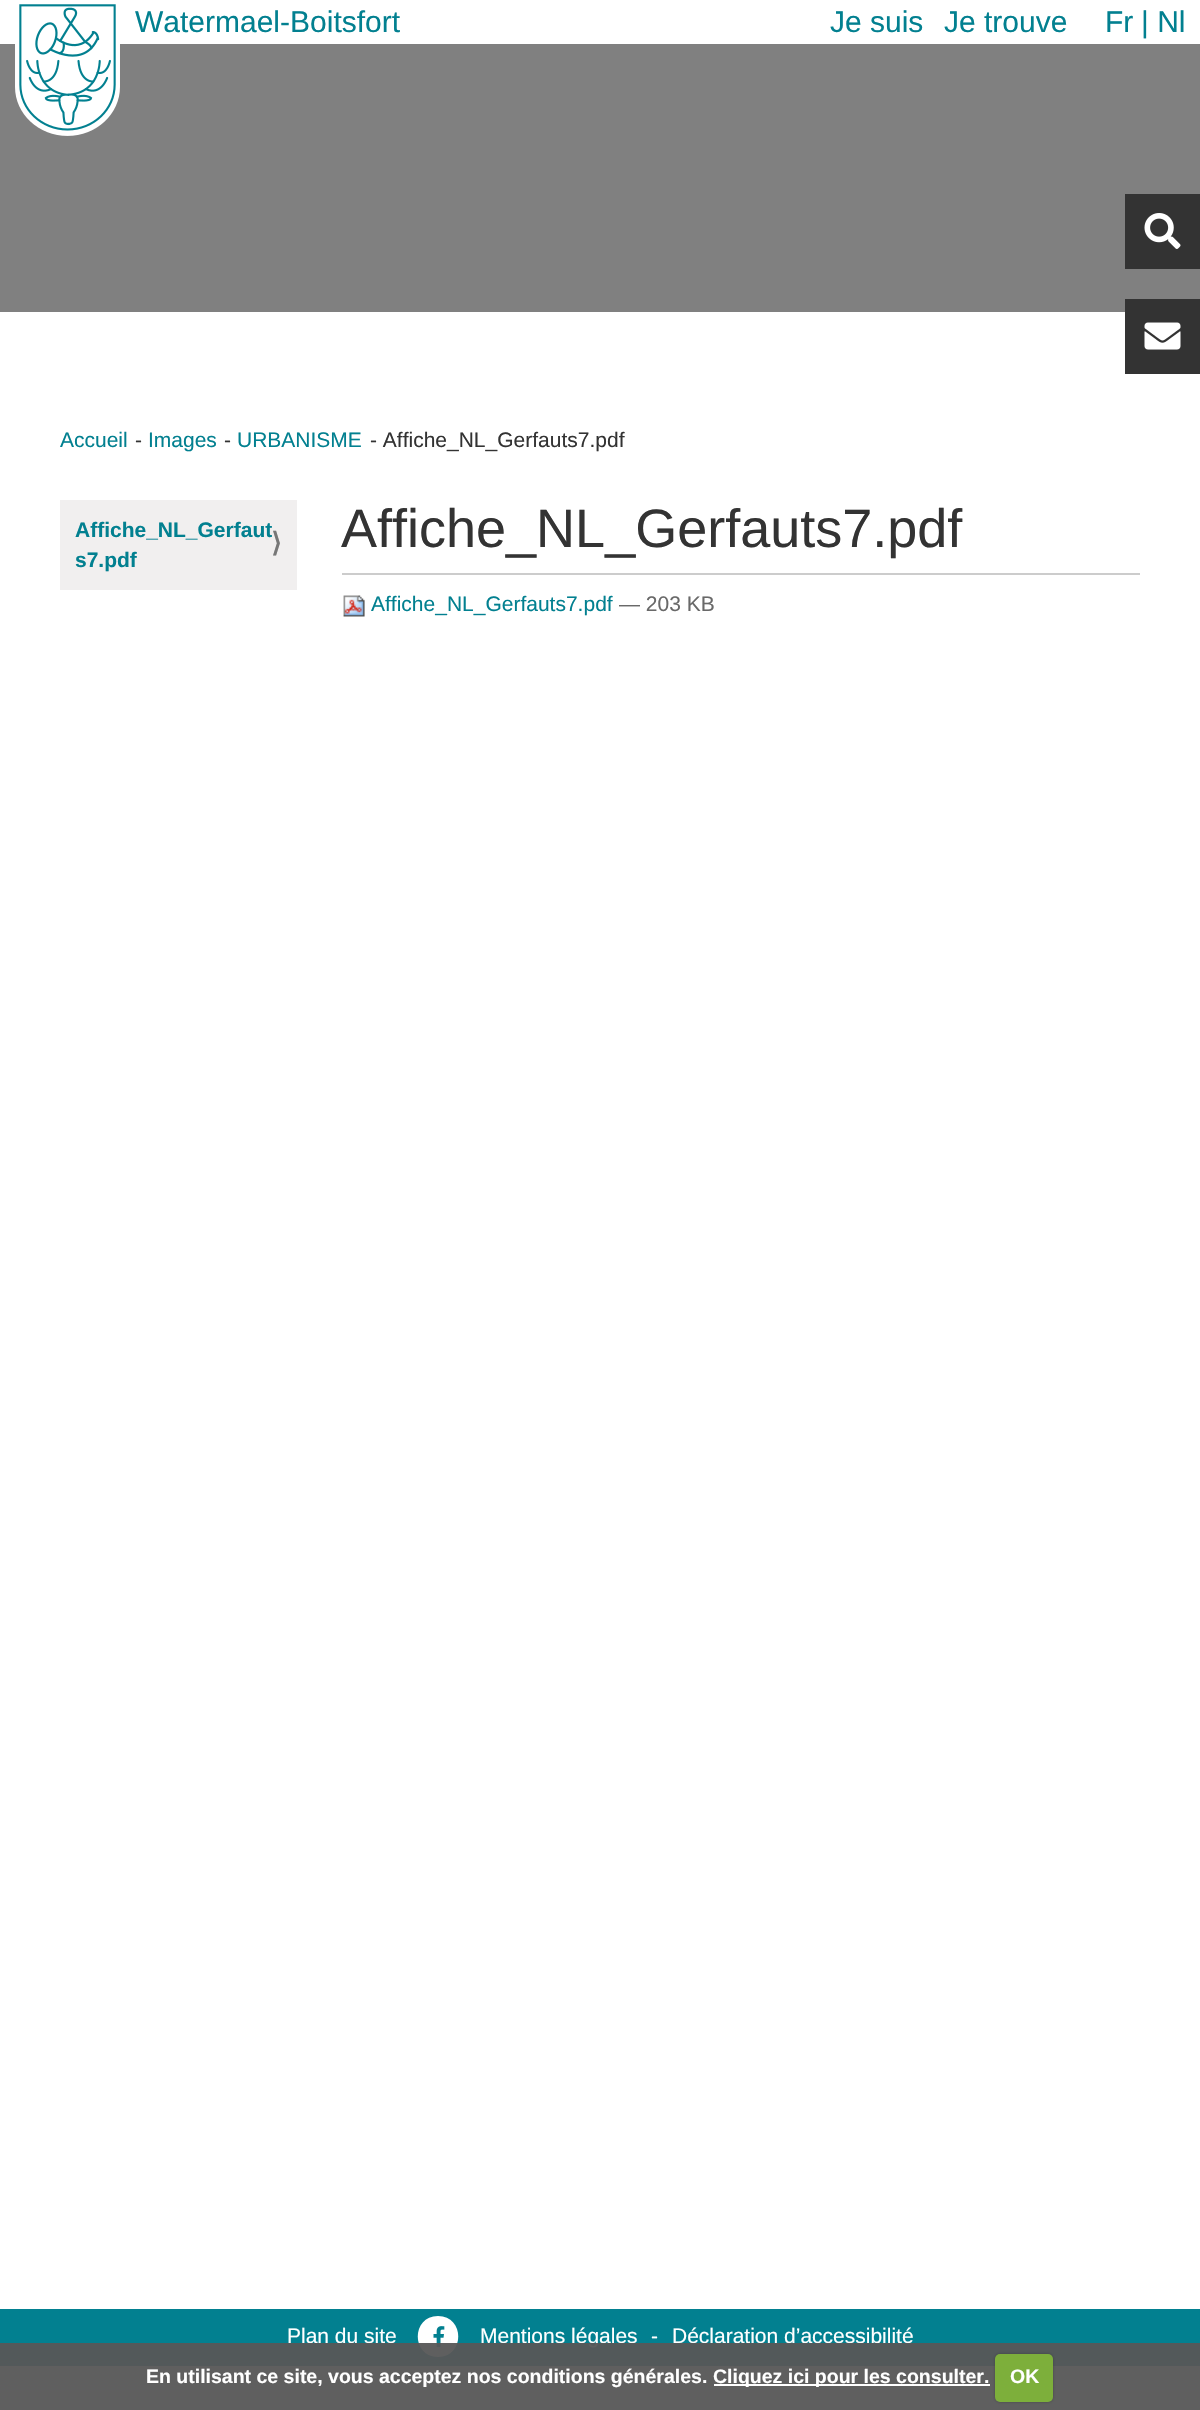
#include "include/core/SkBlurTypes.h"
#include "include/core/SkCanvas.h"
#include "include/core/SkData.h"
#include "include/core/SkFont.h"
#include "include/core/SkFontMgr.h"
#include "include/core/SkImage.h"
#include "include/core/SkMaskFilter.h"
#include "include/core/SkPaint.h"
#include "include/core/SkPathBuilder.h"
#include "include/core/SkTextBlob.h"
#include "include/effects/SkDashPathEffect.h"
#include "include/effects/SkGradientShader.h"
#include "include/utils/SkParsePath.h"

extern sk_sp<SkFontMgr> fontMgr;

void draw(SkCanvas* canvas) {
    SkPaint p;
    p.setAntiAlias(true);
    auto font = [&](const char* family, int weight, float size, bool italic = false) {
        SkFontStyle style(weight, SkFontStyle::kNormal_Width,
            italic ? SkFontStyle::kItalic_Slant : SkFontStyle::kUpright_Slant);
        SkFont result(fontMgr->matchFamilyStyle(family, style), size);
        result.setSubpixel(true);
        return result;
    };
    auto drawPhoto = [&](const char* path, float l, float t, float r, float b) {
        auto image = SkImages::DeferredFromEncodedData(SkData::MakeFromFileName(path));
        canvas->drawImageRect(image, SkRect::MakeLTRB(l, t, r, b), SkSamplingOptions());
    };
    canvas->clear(0xFFFFFFFF);
    p.setColor(0xFF808080);
    canvas->drawRect(SkRect::MakeLTRB(0, 44, 1200, 312), p);
    drawPhoto("media/1.png", 15, 4, 120, 136);
    auto font1 = font("Liberation Sans", 400, 30);
    p.setColor(0xFF028090);
    {
        const struct { const char* s; float x, y; } items[] = {
            {"Watermael-Boitsfort", 135, 32},
            {"Je suis", 830, 32},
            {"Je trouve", 944, 32},
            {"Fr", 1105, 32},
            {"| Nl", 1141, 32},
        };
        for (auto [s, x, y] : items) {
            canvas->drawString(s, x, y, font1, p);
        }
    }
    p.setColor(0xFF333333);
    canvas->drawRect(SkRect::MakeLTRB(1125, 194, 1200, 269), p);
    drawPhoto("media/2.png", 1144, 213, 1181, 249);
    canvas->drawRect(SkRect::MakeLTRB(1125, 299, 1200, 374), p);
    drawPhoto("media/3.png", 1144, 322, 1181, 350);
    auto font2 = font("Liberation Sans", 400, 21);
    p.setColor(0xFF028090);
    canvas->drawString("Accueil", 60, 447, font2, p);
    p.setColor(0xFF333333);
    canvas->drawString("-", 135, 447, font2, p);
    p.setColor(0xFF028090);
    canvas->drawString("Images", 148, 447, font2, p);
    p.setColor(0xFF333333);
    canvas->drawString("-", 224, 447, font2, p);
    p.setColor(0xFF028090);
    canvas->drawString("URBANISME", 237, 447, font2, p);
    p.setColor(0xFF333333);
    canvas->drawString("- Affiche_NL_Gerfauts7.pdf", 370, 447, font2, p);
    p.setColor(0xFFF1EFEF);
    canvas->drawRect(SkRect::MakeLTRB(60, 500, 297, 590), p);
    auto font3 = font("Liberation Sans", 700, 21);
    p.setColor(0xFF028090);
    canvas->drawString("Affiche_NL_Gerfaut", 75, 537, font3, p);
    auto font4 = font("DejaVu Sans", 700, 27);
    p.setColor(0xFF777777);
    canvas->drawString("⟩", 271, 552, font4, p);
    p.setColor(0xFF028090);
    canvas->drawString("s7.pdf", 75, 567, font3, p);
    p.setColor(0xFFCCCCCC);
    canvas->drawRect(SkRect::MakeLTRB(342, 573, 1140, 575), p);
    auto font5 = font("Liberation Sans", 400, 54);
    p.setColor(0xFF333333);
    canvas->drawString("Affiche_NL_Gerfauts7.pdf", 341, 547, font5, p);
    drawPhoto("media/4.png", 343, 595, 365, 617);
    p.setColor(0xFF028090);
    canvas->drawString("Affiche_NL_Gerfauts7.pdf", 371, 611, font2, p);
    p.setColor(0xFF696969);
    canvas->drawString("— 203 KB", 619, 611, font2, p);
    p.setColor(0xFF028090);
    canvas->drawRect(SkRect::MakeLTRB(0, 2309, 1200, 2366), p);
    p.setColor(0xFFFFFFFF);
    canvas->drawString("Plan du site", 287, 2343, font2, p);
    canvas->drawPath(SkPathBuilder().moveTo(438, 2316).cubicTo(411, 2316, 411, 2357, 438, 2357).cubicTo(465, 2357, 465, 2316, 438, 2316).close().detach(), p);
    drawPhoto("media/5.png", 433, 2326, 445, 2348);
    {
        const struct { const char* s; float x, y; } items[] = {
            {"Mentions légales", 480, 2343},
            {"-", 651, 2343},
            {"Déclaration d’accessibilité", 672, 2343},
        };
        for (auto [s, x, y] : items) {
            canvas->drawString(s, x, y, font2, p);
        }
    }
    p.setColor(0xF2565656);
    canvas->drawRect(SkRect::MakeLTRB(0, 2343, 1200, 2410), p);
    auto font6 = font("Liberation Sans", 700, 19.5f);
    p.setColor(0xFFFFFFFF);
    canvas->drawString("En utilisant ce site, vous acceptez nos conditions générales.", 146, 2383, font6, p);
    canvas->drawRect(SkRect::MakeLTRB(714, 2384, 990, 2386), p);
    canvas->drawString("Cliquez ici pour les consulter.", 713, 2383, font6, p);
    p.setColor(0x40000000);
    p.setMaskFilter(SkMaskFilter::MakeBlur(kNormal_SkBlurStyle, 1.5f));
    canvas->drawRoundRect(SkRect::MakeLTRB(995, 2354, 1053, 2402), 5, 5, p);
    p.setMaskFilter(nullptr);
    p.setColor(0xFF7DAF3B);
    canvas->drawRoundRect(SkRect::MakeLTRB(995, 2354, 1053, 2402), 5, 5, p);
    p.setColor(0xFFFFFFFF);
    canvas->drawString("OK", 1010, 2383, font6, p);
}
